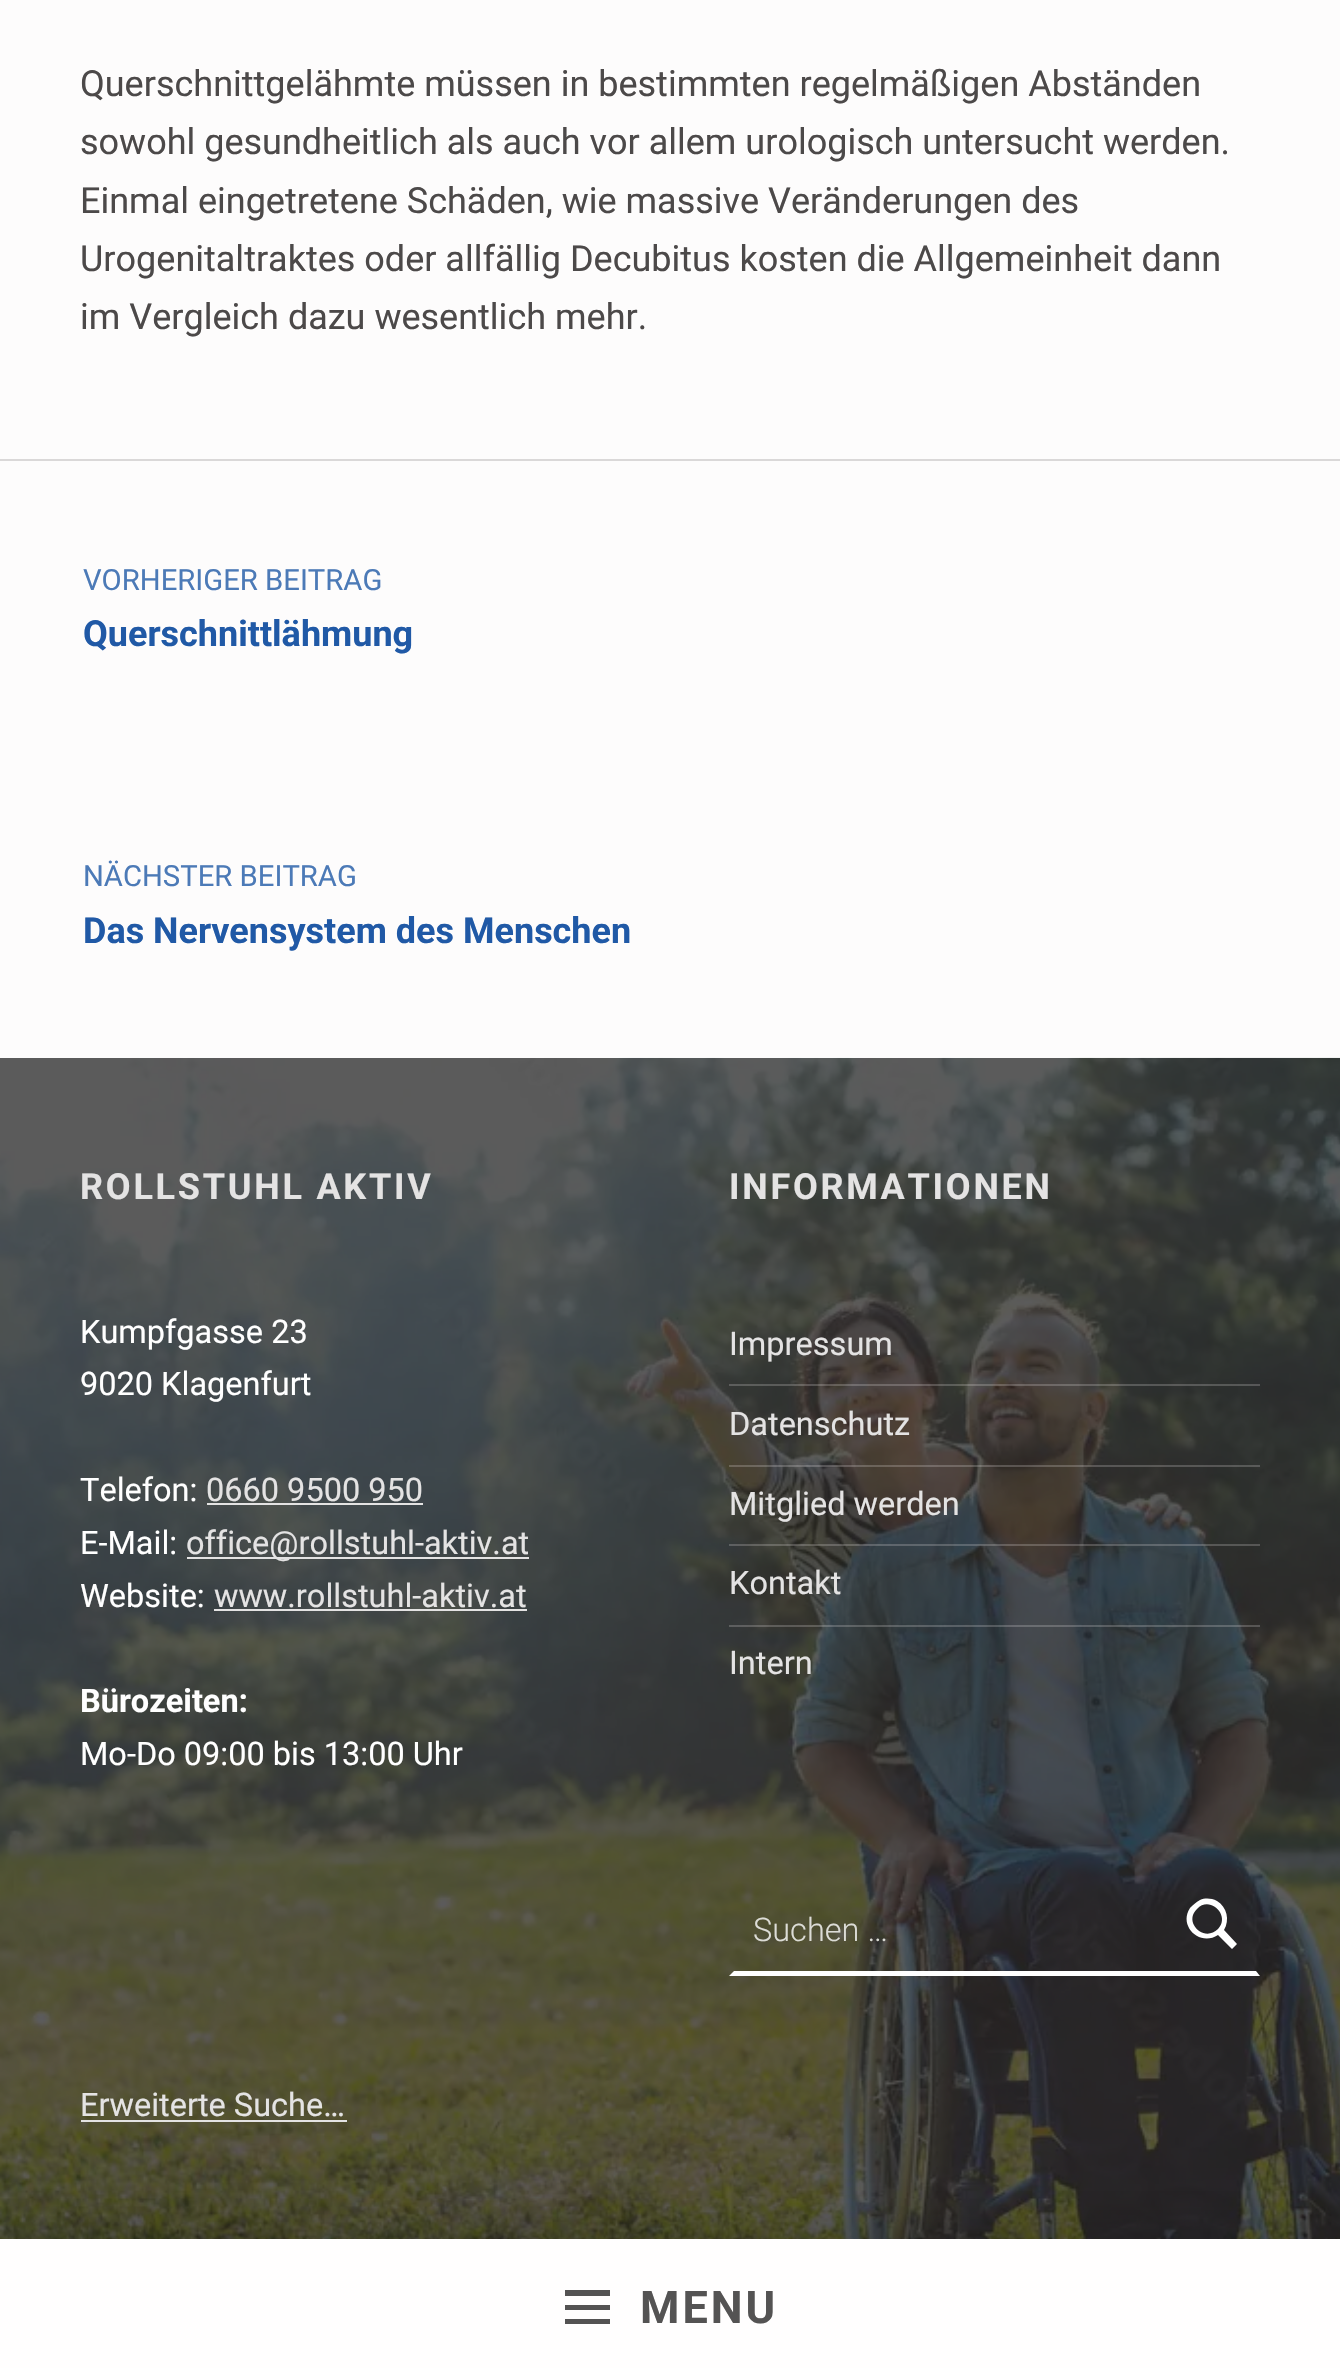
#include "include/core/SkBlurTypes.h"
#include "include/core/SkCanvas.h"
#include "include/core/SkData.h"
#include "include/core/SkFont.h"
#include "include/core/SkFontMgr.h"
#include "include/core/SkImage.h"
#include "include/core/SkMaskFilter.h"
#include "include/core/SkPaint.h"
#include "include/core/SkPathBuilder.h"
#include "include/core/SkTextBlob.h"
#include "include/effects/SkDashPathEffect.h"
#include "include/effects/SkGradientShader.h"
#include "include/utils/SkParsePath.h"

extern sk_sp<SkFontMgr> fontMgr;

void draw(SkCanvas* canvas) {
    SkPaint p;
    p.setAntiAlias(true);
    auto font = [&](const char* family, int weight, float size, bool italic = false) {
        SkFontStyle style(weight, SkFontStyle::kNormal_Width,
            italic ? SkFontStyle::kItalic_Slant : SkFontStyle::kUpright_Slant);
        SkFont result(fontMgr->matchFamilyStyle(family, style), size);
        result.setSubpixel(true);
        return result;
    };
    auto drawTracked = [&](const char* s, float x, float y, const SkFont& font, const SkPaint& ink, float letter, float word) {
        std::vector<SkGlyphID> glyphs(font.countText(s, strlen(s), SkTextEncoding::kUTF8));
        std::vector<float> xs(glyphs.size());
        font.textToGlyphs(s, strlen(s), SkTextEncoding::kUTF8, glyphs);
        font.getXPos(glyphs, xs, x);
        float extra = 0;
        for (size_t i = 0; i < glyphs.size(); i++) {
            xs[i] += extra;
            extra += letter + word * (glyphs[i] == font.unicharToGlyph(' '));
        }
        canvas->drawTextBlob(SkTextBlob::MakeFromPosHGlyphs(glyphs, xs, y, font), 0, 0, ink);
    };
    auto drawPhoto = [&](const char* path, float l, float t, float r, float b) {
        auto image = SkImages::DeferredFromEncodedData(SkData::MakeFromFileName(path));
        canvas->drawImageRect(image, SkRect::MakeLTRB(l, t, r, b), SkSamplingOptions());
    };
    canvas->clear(0xFFFDFCFC);
    auto font1 = font("Roboto", 400, 36);
    p.setColor(0xFF4C4949);
    {
        const struct { const char* s; float x, y; } items[] = {
            {"Querschnittgelähmte müssen in bestimmten regelmäßigen Abständen", 80, 96},
            {"sowohl gesundheitlich als auch vor allem urologisch untersucht werden.", 80, 154},
            {"Einmal eingetretene Schäden, wie massive Veränderungen des", 80, 213},
            {"Urogenitaltraktes oder allfällig Decubitus kosten die Allgemeinheit dann", 80, 271},
            {"im Vergleich dazu wesentlich mehr.", 80, 329},
        };
        for (auto [s, x, y] : items) {
            canvas->drawString(s, x, y, font1, p);
        }
    }
    p.setColor(0xFFDAD8D8);
    canvas->drawRect(SkRect::MakeLTRB(0, 459, 1340, 461), p);
    auto font2 = font("Roboto", 400, 29.25f);
    p.setColor(0xFF4C7AB7);
    canvas->drawString("VORHERIGER BEITRAG", 83, 590, font2, p);
    auto font3 = font("Roboto", 700, 36);
    p.setColor(0xFF2059A6);
    canvas->drawString("Querschnittlähmung", 83, 646, font3, p);
    p.setColor(0xFF4C7AB7);
    canvas->drawString("NÄCHSTER BEITRAG", 83, 886, font2, p);
    p.setColor(0xFF2059A6);
    canvas->drawString("Das Nervensystem des Menschen", 83, 943, font3, p);
    p.setColor(0xFF242323);
    canvas->drawRect(SkRect::MakeLTRB(0, 1058, 1340, 2239), p);
    drawPhoto("media/1.png", 0, 1057, 1340, 2239);
    p.setColor(0xFFE4E3E3);
    drawTracked("ROLLSTUHL AKTIV", 80, 1199, font3, p, 2.75f, 0);
    auto font4 = font("Roboto", 400, 32.5f);
    p.setColor(0xFFFFFFFF);
    {
        const struct { const char* s; float x, y; } items[] = {
            {"Kumpfgasse 23", 80, 1343},
            {"9020 Klagenfurt", 80, 1395},
            {"Telefon:", 80, 1501},
        };
        for (auto [s, x, y] : items) {
            canvas->drawString(s, x, y, font4, p);
        }
    }
    p.setColor(0xFFE4E3E3);
    canvas->drawString("0660 9500 950", 206, 1501, font4, p);
    canvas->drawRect(SkRect::MakeLTRB(207, 1503, 423, 1505), p);
    p.setColor(0xFFFFFFFF);
    canvas->drawString("E-Mail:", 80, 1554, font4, p);
    p.setColor(0xFFE4E3E3);
    canvas->drawRect(SkRect::MakeLTRB(187, 1557, 529, 1559), p);
    canvas->drawString("office@rollstuhl-aktiv.at", 186, 1554, font4, p);
    p.setColor(0xFFFFFFFF);
    canvas->drawString("Website:", 80, 1607, font4, p);
    p.setColor(0xFFE4E3E3);
    canvas->drawString("www.rollstuhl-aktiv.at", 214, 1607, font4, p);
    canvas->drawRect(SkRect::MakeLTRB(214, 1609, 527, 1611), p);
    auto font5 = font("Roboto", 700, 32.5f);
    p.setColor(0xFFFFFFFF);
    canvas->drawString("Bürozeiten:", 80, 1712, font5, p);
    canvas->drawString("Mo-Do 09:00 bis 13:00 Uhr", 80, 1765, font4, p);
    p.setColor(0xFFE4E3E3);
    drawTracked("INFORMATIONEN", 729, 1199, font3, p, 2.75f, 0);
    canvas->drawString("Impressum", 729, 1355, font4, p);
    p.setColor(0x33FFFCFC);
    canvas->drawRect(SkRect::MakeLTRB(729, 1384, 1260, 1386), p);
    p.setColor(0xFFE4E3E3);
    canvas->drawString("Datenschutz", 729, 1435, font4, p);
    p.setColor(0x33FFFCFC);
    canvas->drawRect(SkRect::MakeLTRB(729, 1465, 1260, 1467), p);
    p.setColor(0xFFE4E3E3);
    canvas->drawString("Mitglied werden", 729, 1515, font4, p);
    p.setColor(0x33FFFCFC);
    canvas->drawRect(SkRect::MakeLTRB(729, 1544, 1260, 1546), p);
    p.setColor(0xFFE4E3E3);
    canvas->drawString("Kontakt", 729, 1594, font4, p);
    p.setColor(0x33FFFCFC);
    canvas->drawRect(SkRect::MakeLTRB(729, 1625, 1260, 1627), p);
    p.setColor(0xFFE4E3E3);
    canvas->drawString("Intern", 729, 1674, font4, p);
    p.setColor(0xFFFFFFFF);
    canvas->drawPath(SkPathBuilder().moveTo(1260, 1976).lineTo(729, 1976).lineTo(734, 1971).lineTo(1256, 1971).close().detach(), p);
    auto font6 = font("Roboto", 300, 32.5f);
    p.setColor(0xFFDCDCD6);
    canvas->drawString("Suchen …", 753, 1941, font6, p);
    p.setColor(0xFFFFFFFF);
    canvas->drawPath(SkPathBuilder().moveTo(1237, 1944).lineTo(1232, 1949).lineTo(1218, 1935).cubicTo(1200, 1947, 1178, 1926, 1190, 1908).cubicTo(1193, 1905, 1196, 1902, 1200, 1900).cubicTo(1205, 1898, 1211, 1898, 1217, 1901).cubicTo(1227, 1907, 1230, 1920, 1224, 1930).close().moveTo(1197, 1909).cubicTo(1183, 1922, 1204, 1943, 1218, 1929).cubicTo(1231, 1916, 1210, 1895, 1197, 1909).close().detach(), p);
    p.setColor(0xFFE4E3E3);
    canvas->drawString("Erweiterte Suche…", 80, 2116, font4, p);
    canvas->drawRect(SkRect::MakeLTRB(81, 2120, 347, 2122), p);
    p.setColor(0x33000000);
    p.setMaskFilter(SkMaskFilter::MakeBlur(kNormal_SkBlurStyle, 29));
    canvas->drawRect(SkRect::MakeLTRB(0, 2234, 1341, 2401), p);
    p.setMaskFilter(nullptr);
    p.setColor(0xFFFFFEFE);
    canvas->drawRect(SkRect::MakeLTRB(0, 2239, 1340, 2368), p);
    p.setColor(0xFF545353);
    canvas->drawPath(SkPathBuilder().moveTo(565, 2324).lineTo(565, 2319).lineTo(610, 2319).lineTo(610, 2324).close().moveTo(565, 2290).lineTo(610, 2290).lineTo(610, 2296).lineTo(565, 2296).close().moveTo(565, 2310).lineTo(565, 2305).lineTo(610, 2305).lineTo(610, 2310).close().detach(), p);
    auto font7 = font("Roboto", 700, 45);
    drawTracked("MENU", 640, 2323, font7, p, 3, 0);
}
